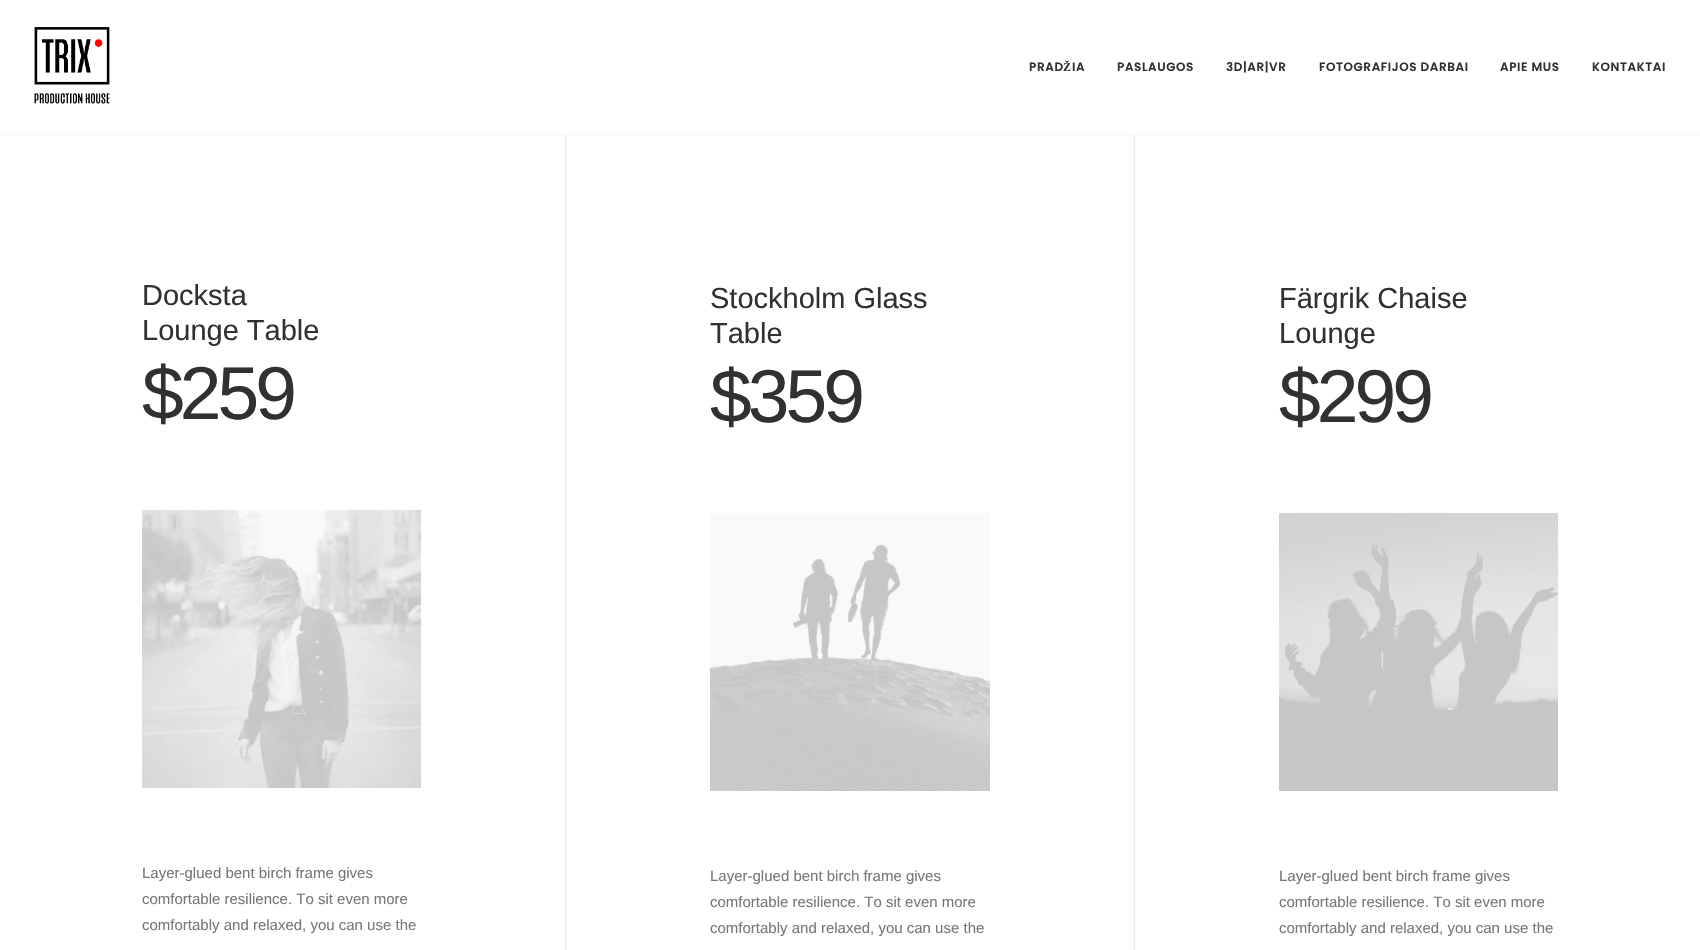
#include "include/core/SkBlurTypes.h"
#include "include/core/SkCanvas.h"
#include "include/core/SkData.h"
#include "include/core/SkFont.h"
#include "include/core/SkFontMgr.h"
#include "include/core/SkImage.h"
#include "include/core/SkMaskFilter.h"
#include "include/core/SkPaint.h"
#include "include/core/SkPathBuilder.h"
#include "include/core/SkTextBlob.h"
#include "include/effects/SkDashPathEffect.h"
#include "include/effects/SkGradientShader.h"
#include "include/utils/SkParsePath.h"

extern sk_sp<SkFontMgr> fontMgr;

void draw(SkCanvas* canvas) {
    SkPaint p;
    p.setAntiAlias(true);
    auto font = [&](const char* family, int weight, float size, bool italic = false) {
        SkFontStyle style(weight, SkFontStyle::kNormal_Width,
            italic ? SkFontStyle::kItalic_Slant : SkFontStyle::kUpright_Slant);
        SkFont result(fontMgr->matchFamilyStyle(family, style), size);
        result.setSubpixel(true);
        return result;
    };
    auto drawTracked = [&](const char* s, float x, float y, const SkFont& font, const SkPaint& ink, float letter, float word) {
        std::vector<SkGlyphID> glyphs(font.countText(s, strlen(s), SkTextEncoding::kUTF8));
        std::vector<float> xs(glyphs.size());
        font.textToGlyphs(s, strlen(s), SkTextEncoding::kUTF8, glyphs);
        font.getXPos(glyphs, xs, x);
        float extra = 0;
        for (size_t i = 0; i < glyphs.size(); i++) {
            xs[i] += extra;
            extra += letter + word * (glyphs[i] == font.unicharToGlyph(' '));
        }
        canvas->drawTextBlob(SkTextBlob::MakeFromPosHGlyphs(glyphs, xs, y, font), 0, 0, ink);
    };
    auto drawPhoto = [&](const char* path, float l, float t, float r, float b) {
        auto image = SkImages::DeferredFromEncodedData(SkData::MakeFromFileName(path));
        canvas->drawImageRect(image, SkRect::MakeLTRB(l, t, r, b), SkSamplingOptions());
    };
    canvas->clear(0xFFEAEAEA);
    p.setColor(0xFFFFFFFF);
    canvas->drawRect(SkRect::MakeLTRB(0, 0, 1700, 134), p);
    p.setColor(0xFFF5F5F5);
    canvas->drawRect(SkRect::MakeLTRB(0, 134, 1700, 135), p);
    drawPhoto("media/1.png", 34, 27, 110, 104);
    auto font1 = font("Poppins", 600, 12);
    p.setColor(0xFF303133);
    drawTracked("PRAD", 1029, 71, font1, p, 0.6f, 0);
    auto font2 = font("Liberation Serif", 700, 12);
    drawTracked("Ž", 1063, 71, font2, p, 0.6f, 0);
    {
        const struct { const char* s; float x, y; } items[] = {
            {"IA", 1072, 71},
            {"PASLAUGOS", 1117, 71},
            {"3D|AR|VR", 1226, 71},
            {"FOTOGRAFIJOS DARBAI", 1319, 71},
            {"APIE MUS", 1500, 71},
            {"KONTAKTAI", 1592, 71},
        };
        for (auto [s, x, y] : items) {
            drawTracked(s, x, y, font1, p, 0.6f, 0);
        }
    }
    p.setColor(0xFFFFFFFF);
    canvas->drawRect(SkRect::MakeLTRB(0, 135, 565, 950), p);
    auto font3 = font("Liberation Sans", 400, 29);
    p.setColor(0xFF303133);
    canvas->drawString("Docksta", 142, 305, font3, p);
    canvas->drawString("Lounge Table", 142, 340, font3, p);
    auto font4 = font("Liberation Sans", 400, 75);
    drawTracked("$259", 142, 419, font4, p, -4, 0);
    drawPhoto("media/2.png", 142, 510, 421, 788);
    auto font5 = font("Liberation Sans", 400, 15);
    p.setColor(0xFF777777);
    {
        const struct { const char* s; float x, y; } items[] = {
            {"Layer-glued bent birch frame gives", 142, 878},
            {"comfortable resilience. To sit even more", 142, 904},
            {"comfortably and relaxed, you can use the", 142, 930},
        };
        for (auto [s, x, y] : items) {
            canvas->drawString(s, x, y, font5, p);
        }
    }
    p.setColor(0xFFFFFFFF);
    canvas->drawRect(SkRect::MakeLTRB(566, 135, 1134, 950), p);
    p.setColor(0xFF303133);
    canvas->drawString("Stockholm Glass", 710, 308, font3, p);
    canvas->drawString("Table", 710, 343, font3, p);
    drawTracked("$359", 710, 422, font4, p, -4, 0);
    drawPhoto("media/3.png", 710, 513, 990, 791);
    p.setColor(0xFF777777);
    {
        const struct { const char* s; float x, y; } items[] = {
            {"Layer-glued bent birch frame gives", 710, 881},
            {"comfortable resilience. To sit even more", 710, 907},
            {"comfortably and relaxed, you can use the", 710, 933},
        };
        for (auto [s, x, y] : items) {
            canvas->drawString(s, x, y, font5, p);
        }
    }
    p.setColor(0xFFFFFFFF);
    canvas->drawRect(SkRect::MakeLTRB(1135, 135, 1700, 950), p);
    p.setColor(0xFF303133);
    canvas->drawString("Färgrik Chaise", 1279, 308, font3, p);
    canvas->drawString("Lounge", 1279, 343, font3, p);
    drawTracked("$299", 1279, 422, font4, p, -4, 0);
    drawPhoto("media/4.png", 1279, 513, 1558, 791);
    p.setColor(0xFF777777);
    {
        const struct { const char* s; float x, y; } items[] = {
            {"Layer-glued bent birch frame gives", 1279, 881},
            {"comfortable resilience. To sit even more", 1279, 907},
            {"comfortably and relaxed, you can use the", 1279, 933},
        };
        for (auto [s, x, y] : items) {
            canvas->drawString(s, x, y, font5, p);
        }
    }
}
